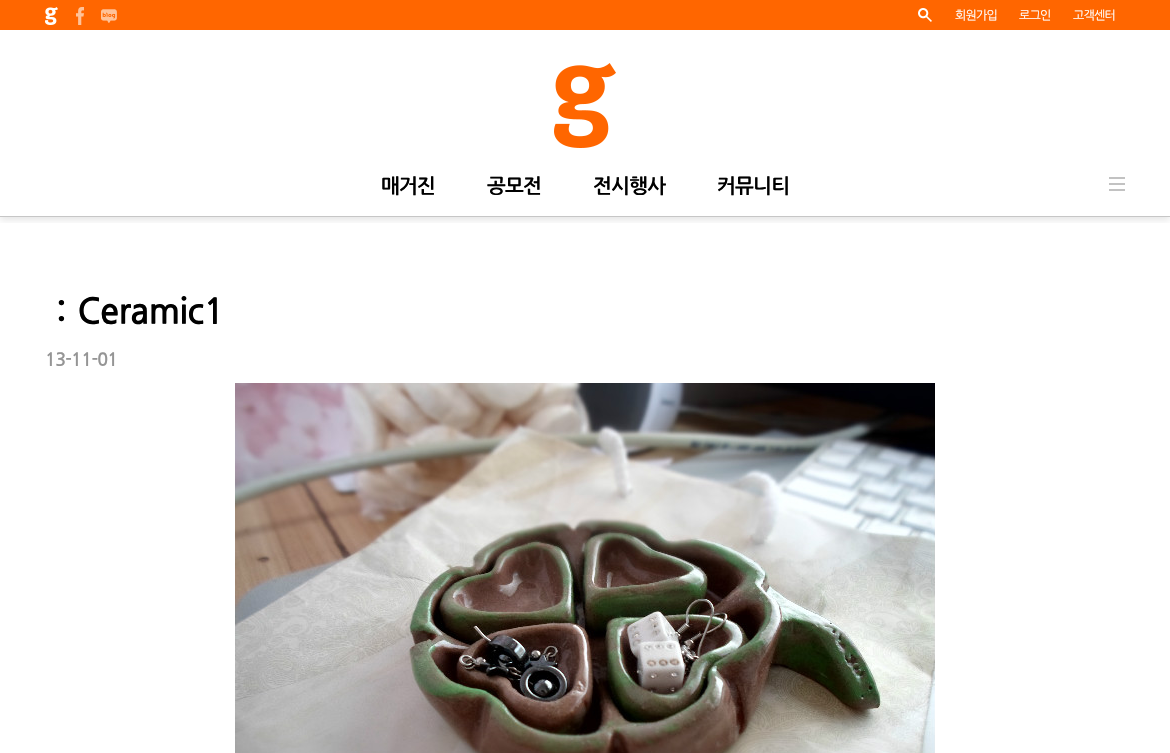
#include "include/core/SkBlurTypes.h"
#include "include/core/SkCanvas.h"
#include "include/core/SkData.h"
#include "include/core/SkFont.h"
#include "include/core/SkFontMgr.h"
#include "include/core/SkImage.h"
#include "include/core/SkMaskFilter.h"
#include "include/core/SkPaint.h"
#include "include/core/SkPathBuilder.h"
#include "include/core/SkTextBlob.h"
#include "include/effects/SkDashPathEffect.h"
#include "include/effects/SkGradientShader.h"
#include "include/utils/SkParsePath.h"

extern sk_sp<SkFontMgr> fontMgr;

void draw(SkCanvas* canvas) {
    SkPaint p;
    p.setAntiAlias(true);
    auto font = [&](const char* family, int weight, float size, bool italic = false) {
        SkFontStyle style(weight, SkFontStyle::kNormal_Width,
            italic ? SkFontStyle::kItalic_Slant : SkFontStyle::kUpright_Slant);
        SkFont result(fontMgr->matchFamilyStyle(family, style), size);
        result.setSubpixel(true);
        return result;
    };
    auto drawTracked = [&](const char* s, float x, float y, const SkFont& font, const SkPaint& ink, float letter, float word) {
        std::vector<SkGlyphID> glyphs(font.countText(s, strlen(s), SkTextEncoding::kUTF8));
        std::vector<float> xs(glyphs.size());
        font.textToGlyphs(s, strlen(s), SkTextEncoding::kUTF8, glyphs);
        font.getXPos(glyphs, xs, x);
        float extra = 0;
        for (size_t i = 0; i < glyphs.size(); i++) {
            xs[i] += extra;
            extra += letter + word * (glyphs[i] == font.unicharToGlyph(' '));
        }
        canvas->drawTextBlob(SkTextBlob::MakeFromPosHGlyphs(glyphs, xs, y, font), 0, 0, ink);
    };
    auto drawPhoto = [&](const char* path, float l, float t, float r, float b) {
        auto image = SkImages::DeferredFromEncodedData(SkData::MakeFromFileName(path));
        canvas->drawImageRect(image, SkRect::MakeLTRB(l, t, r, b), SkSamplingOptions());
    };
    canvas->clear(0xFFFFFFFF);
    canvas->save();
    canvas->clipRect(SkRect::MakeLTRB(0, 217, 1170, 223));
    p.setColor(0x1A000000);
    p.setMaskFilter(SkMaskFilter::MakeBlur(kNormal_SkBlurStyle, 3.5f));
    canvas->drawRect(SkRect::MakeLTRB(0, 3, 1170, 220), p);
    p.setMaskFilter(nullptr);
    canvas->restore();
    p.setColor(0xFFC6C6C6);
    canvas->drawRect(SkRect::MakeLTRB(0, 216, 1170, 217), p);
    p.setColor(0xFFFF6600);
    canvas->drawRect(SkRect::MakeLTRB(0, 0, 1170, 30), p);
    drawPhoto("media/1.png", 45, 7, 58, 25);
    drawPhoto("media/2.png", 76, 7, 84, 25);
    drawPhoto("media/3.png", 101, 9, 117, 23);
    drawPhoto("media/4.png", 918, 8, 932, 22);
    auto font1 = font("NanumGothic", 400, 12);
    p.setColor(0xFFFFFFFF);
    {
        const struct { const char* s; float x, y; } items[] = {
            {"회원가입", 955, 19},
            {"로그인", 1019, 19},
            {"고객센터", 1073, 19},
        };
        for (auto [s, x, y] : items) {
            drawTracked(s, x, y, font1, p, -0.75f, 0);
        }
    }
    drawPhoto("media/5.png", 554, 63, 616, 148);
    auto font2 = font("NanumGothic", 700, 20);
    p.setColor(0xFF000000);
    {
        const struct { const char* s; float x, y; } items[] = {
            {"매거진", 381, 192},
            {"공모전", 487, 192},
            {"전시행사", 593, 192},
            {"커뮤니티", 717, 192},
        };
        for (auto [s, x, y] : items) {
            drawTracked(s, x, y, font2, p, -0.75f, 0);
        }
    }
    drawPhoto("media/6.png", 1109, 177, 1125, 191);
    auto font3 = font("NanumGothic", 700, 35);
    drawTracked("：Ceramic1", 45, 322, font3, p, -0.75f, 0);
    auto font4 = font("NanumGothic", 700, 18);
    p.setColor(0xFF959595);
    drawTracked("13-11-01", 45, 365, font4, p, -0.75f, 0);
    drawPhoto("media/7.png", 235, 383, 935, 753);
}
